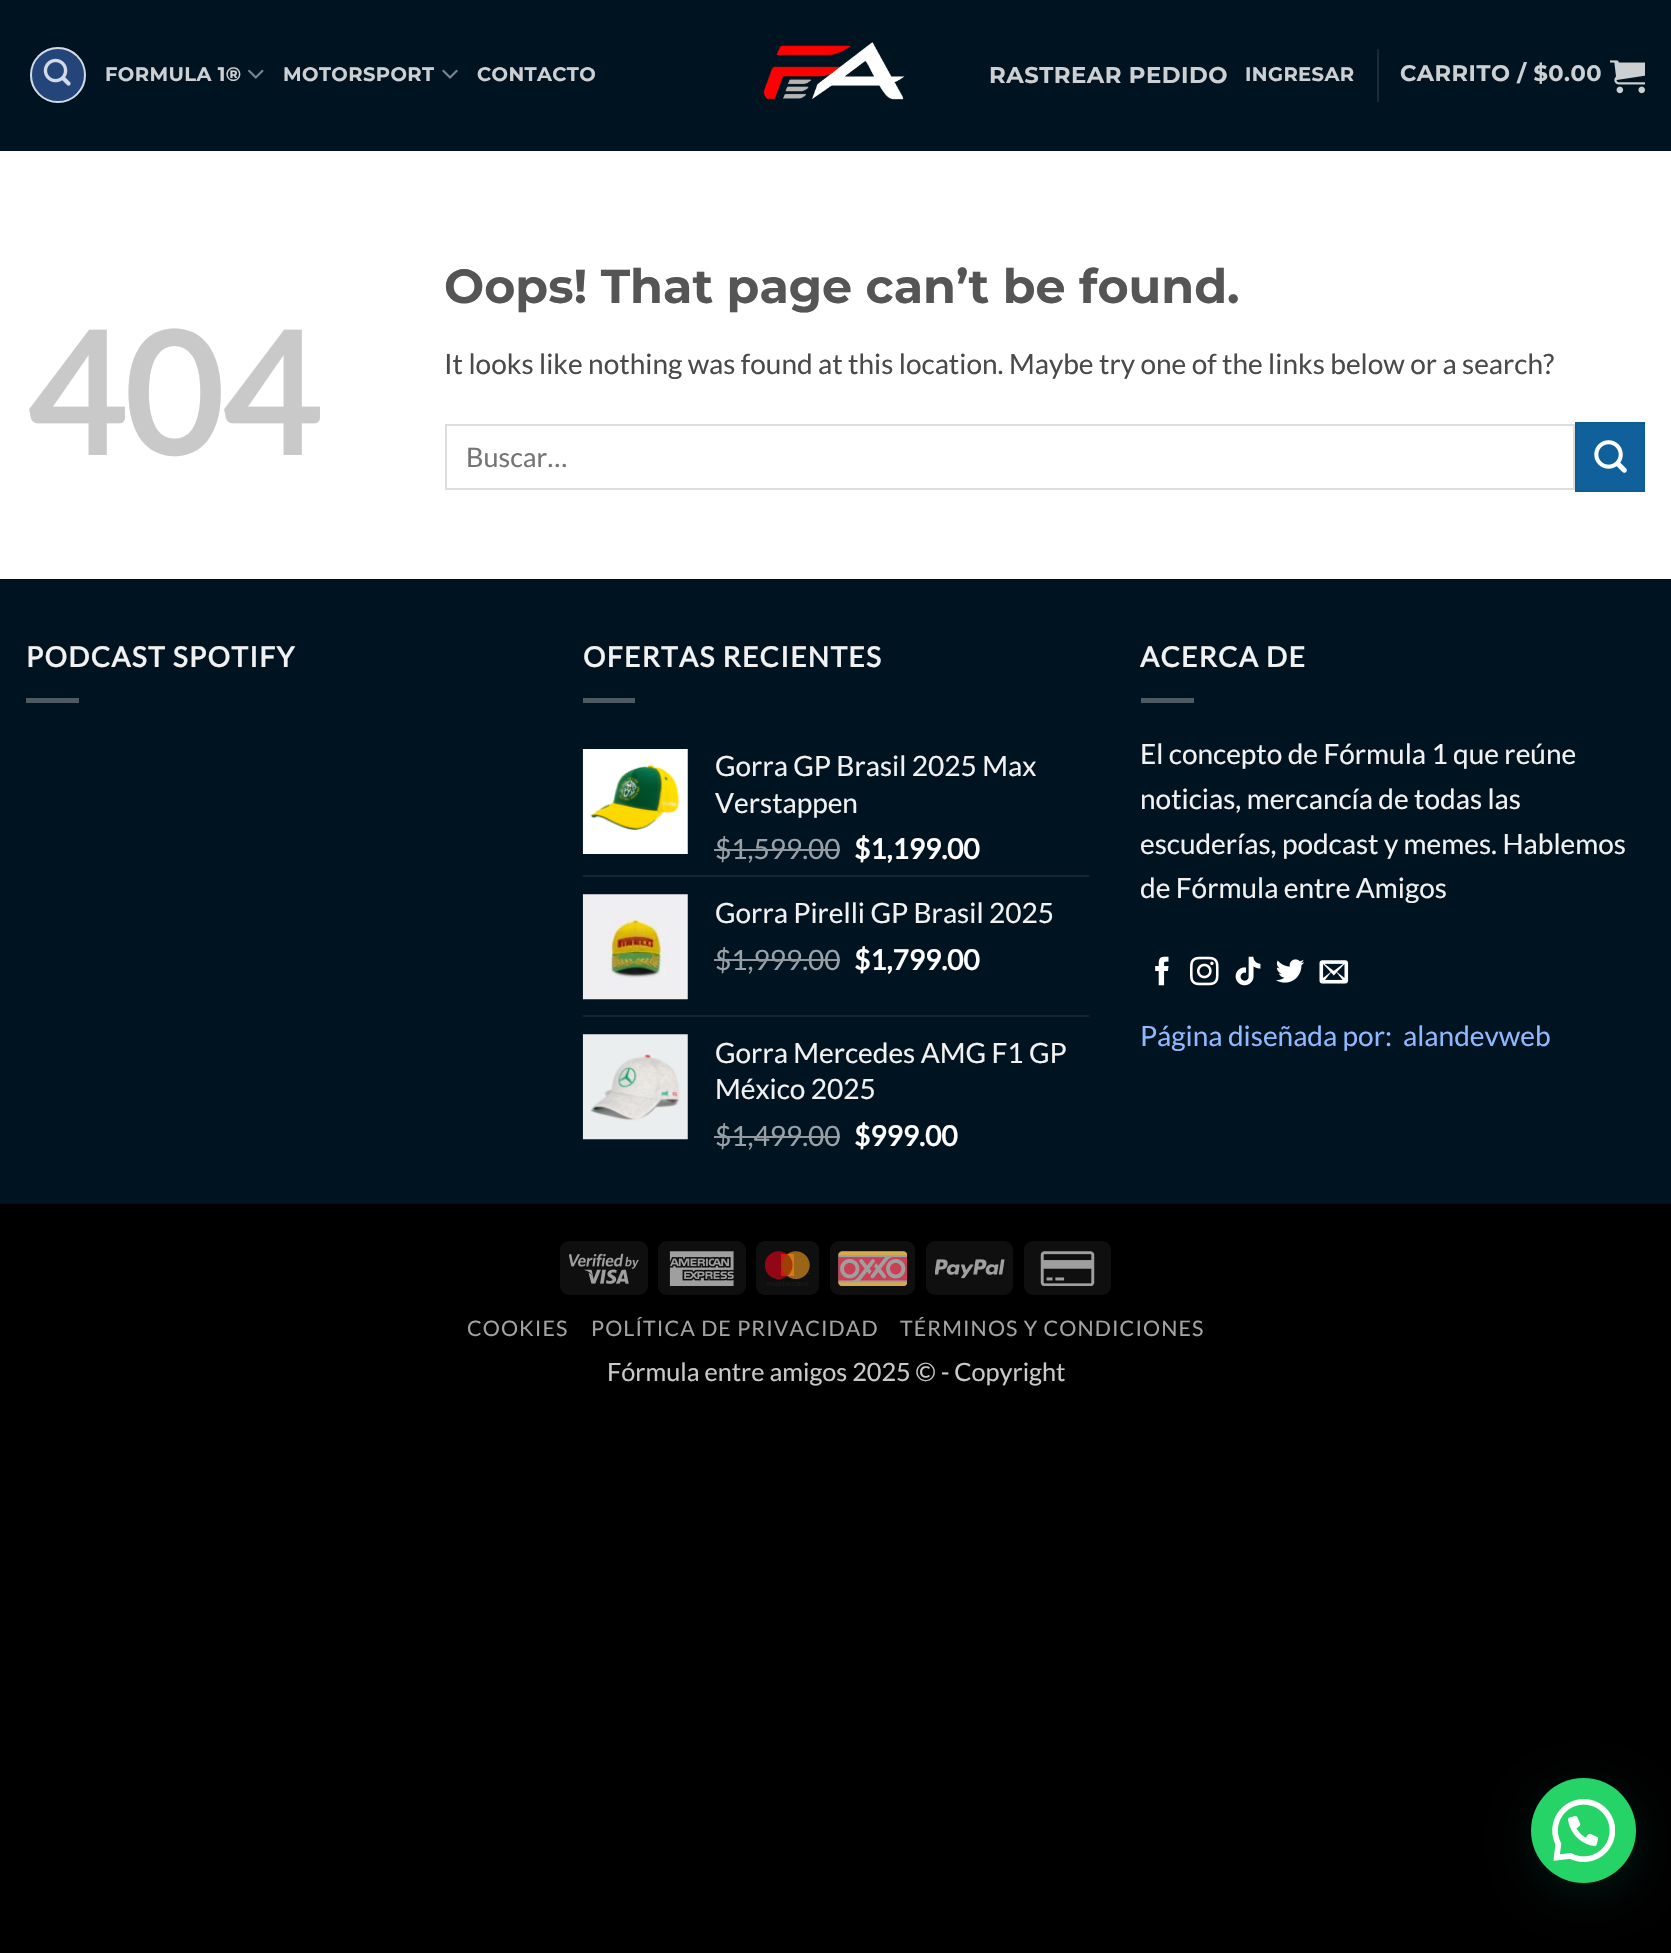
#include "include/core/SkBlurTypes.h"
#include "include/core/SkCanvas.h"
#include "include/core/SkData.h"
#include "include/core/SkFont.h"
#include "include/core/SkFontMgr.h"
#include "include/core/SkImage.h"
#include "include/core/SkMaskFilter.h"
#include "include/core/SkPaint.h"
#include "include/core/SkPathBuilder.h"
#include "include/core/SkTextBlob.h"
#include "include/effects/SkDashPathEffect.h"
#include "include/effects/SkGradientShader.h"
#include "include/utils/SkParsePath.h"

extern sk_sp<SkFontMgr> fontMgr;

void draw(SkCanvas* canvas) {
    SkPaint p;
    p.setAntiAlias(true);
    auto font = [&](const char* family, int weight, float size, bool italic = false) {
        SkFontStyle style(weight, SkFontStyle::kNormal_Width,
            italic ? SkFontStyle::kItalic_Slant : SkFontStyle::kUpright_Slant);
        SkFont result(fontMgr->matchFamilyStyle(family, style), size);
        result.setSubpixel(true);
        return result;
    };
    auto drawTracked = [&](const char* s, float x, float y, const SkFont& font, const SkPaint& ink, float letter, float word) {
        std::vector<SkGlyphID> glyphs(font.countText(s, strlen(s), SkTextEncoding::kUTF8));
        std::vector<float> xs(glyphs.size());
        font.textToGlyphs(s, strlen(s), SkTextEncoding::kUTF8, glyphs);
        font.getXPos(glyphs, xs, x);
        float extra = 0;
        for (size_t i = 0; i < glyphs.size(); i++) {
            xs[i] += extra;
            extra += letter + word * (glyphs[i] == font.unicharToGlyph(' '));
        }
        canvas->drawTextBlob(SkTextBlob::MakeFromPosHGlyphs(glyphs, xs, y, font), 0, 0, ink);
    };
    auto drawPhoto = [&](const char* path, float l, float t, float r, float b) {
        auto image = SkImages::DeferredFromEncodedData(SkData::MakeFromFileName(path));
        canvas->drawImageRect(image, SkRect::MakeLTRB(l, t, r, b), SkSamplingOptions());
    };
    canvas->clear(0xFF000000);
    p.setColor(0xFFFFFFFF);
    canvas->drawRect(SkRect::MakeLTRB(0, 151, 1671, 579), p);
    p.setColor(0xFF001321);
    canvas->drawRect(SkRect::MakeLTRB(0, 0, 1671, 151), p);
    p.setColor(0xFF23457A);
    canvas->drawCircle(58, 75, 28, p);
    p.setStyle(SkPaint::kStroke_Style);
    p.setStrokeWidth(2);
    p.setColor(0xCCFFFFFF);
    canvas->drawCircle(58, 75, 27, p);
    drawPhoto("media/1.png", 43, 58, 71, 86);
    auto font1 = font("Montserrat", 700, 19.5f);
    p.setStyle(SkPaint::kFill_Style);
    p.setColor(0xFFCCD0D3);
    drawTracked("FORMULA 1®", 105, 81, font1, p, 0.4f, 0);
    drawPhoto("media/2.png", 248, 69, 264, 79);
    drawTracked("MOTORSPORT", 283, 81, font1, p, 0.4f, 0);
    drawPhoto("media/3.png", 442, 69, 458, 79);
    drawTracked("CONTACTO", 477, 81, font1, p, 0.4f, 0);
    drawPhoto("media/4.png", 763, 42, 905, 100);
    auto font2 = font("Montserrat", 700, 22.75f);
    drawTracked("RASTREAR PEDIDO", 989, 83, font2, p, 0.5f, 0);
    drawTracked("INGRESAR", 1245, 81, font1, p, 0.4f, 0);
    p.setColor(0xFF1A2B37);
    canvas->drawRect(SkRect::MakeLTRB(1377, 49, 1379, 102), p);
    auto font3 = font("Montserrat", 700, 22.5f);
    p.setColor(0xFFCCD0D3);
    drawTracked("CARRITO / $0.00", 1400, 81, font3, p, 0.5f, 0);
    drawPhoto("media/5.png", 1610, 60, 1645, 94);
    auto font4 = font("Lato", 700, 168);
    p.setColor(0xFFC9C9C9);
    canvas->drawString("404", 26, 455, font4, p);
    auto font5 = font("Montserrat", 700, 47.6f);
    p.setColor(0xFF555555);
    canvas->drawString("Oops! That page can’t be found.", 444, 303, font5, p);
    auto font6 = font("Lato", 400, 28);
    p.setColor(0xFF4A4A4A);
    canvas->drawString("It looks like nothing was found at this location. Maybe try one of the links below or a search?", 444, 374, font6, p);
    p.setStyle(SkPaint::kStroke_Style);
    p.setColor(0xFFDDDDDD);
    canvas->drawRect(SkRect::MakeLTRB(446, 425, 1574, 489), p);
    auto font7 = font("Lato", 400, 27);
    p.setStyle(SkPaint::kFill_Style);
    p.setColor(0xFF757575);
    canvas->drawString("Buscar…", 466, 467, font7, p);
    p.setColor(0xFF10619B);
    canvas->drawRect(SkRect::MakeLTRB(1576, 423, 1644, 491), p);
    p.setStyle(SkPaint::kStroke_Style);
    p.setColor(0xFF0F5C93);
    canvas->drawRect(SkRect::MakeLTRB(1576, 423, 1644, 491), p);
    drawPhoto("media/6.png", 1594, 440, 1627, 473);
    p.setStyle(SkPaint::kFill_Style);
    p.setColor(0xFF001321);
    canvas->drawRect(SkRect::MakeLTRB(0, 581, 1671, 1204), p);
    p.setColor(0xFF00121F);
    canvas->drawRect(SkRect::MakeLTRB(0, 579, 1671, 581), p);
    auto font8 = font("Lato", 700, 28);
    p.setColor(0xFFF1F1F1);
    drawTracked("PODCAST SPOTIFY", 26, 667, font8, p, 1.4f, 0);
    p.setColor(0xFF4D5A64);
    canvas->drawRect(SkRect::MakeLTRB(26, 698, 79, 703), p);
    p.setColor(0xFFF1F1F1);
    drawTracked("OFERTAS RECIENTES", 583, 667, font8, p, 1.4f, 0);
    p.setColor(0xFF4D5A64);
    canvas->drawRect(SkRect::MakeLTRB(583, 698, 635, 703), p);
    drawPhoto("media/7.png", 582, 749, 688, 854);
    p.setColor(0xFFF1F1F1);
    canvas->drawString("Gorra GP Brasil 2025 Max", 715, 776, font6, p);
    canvas->drawString("Verstappen", 715, 813, font6, p);
    p.setColor(0xFF99A1A6);
    canvas->drawString("$1,599.00", 715, 859, font6, p);
    p.setColor(0xFF91989E);
    canvas->drawRect(SkRect::MakeLTRB(714, 849, 840, 851), p);
    p.setColor(0xFFFFFFFF);
    canvas->drawString("$1,199.00", 854, 859, font8, p);
    p.setColor(0xFF142633);
    canvas->drawRect(SkRect::MakeLTRB(583, 875, 1089, 877), p);
    drawPhoto("media/8.png", 582, 894, 688, 1000);
    p.setColor(0xFFF1F1F1);
    canvas->drawString("Gorra Pirelli GP Brasil 2025", 715, 923, font6, p);
    p.setColor(0xFF99A1A6);
    canvas->drawString("$1,999.00", 715, 970, font6, p);
    p.setColor(0xFF91989E);
    canvas->drawRect(SkRect::MakeLTRB(714, 959, 840, 961), p);
    p.setColor(0xFFFFFFFF);
    canvas->drawString("$1,799.00", 854, 970, font8, p);
    p.setColor(0xFF142633);
    canvas->drawRect(SkRect::MakeLTRB(583, 1015, 1089, 1017), p);
    drawPhoto("media/9.png", 582, 1034, 688, 1140);
    p.setColor(0xFFF1F1F1);
    canvas->drawString("Gorra Mercedes AMG F1 GP", 715, 1063, font6, p);
    canvas->drawString("México 2025", 715, 1099, font6, p);
    p.setColor(0xFF99A1A6);
    canvas->drawString("$1,499.00", 715, 1146, font6, p);
    p.setColor(0xFF91989E);
    canvas->drawRect(SkRect::MakeLTRB(714, 1136, 840, 1138), p);
    p.setColor(0xFFFFFFFF);
    canvas->drawString("$999.00", 854, 1146, font8, p);
    p.setColor(0xFFF1F1F1);
    drawTracked("ACERCA DE", 1140, 667, font8, p, 1.4f, 0);
    p.setColor(0xFF4D5A64);
    canvas->drawRect(SkRect::MakeLTRB(1141, 698, 1194, 703), p);
    p.setColor(0xFFF1F1F1);
    {
        const struct { const char* s; float x, y; } items[] = {
            {"El concepto de Fórmula 1 que reúne", 1140, 764},
            {"noticias, mercancía de todas las", 1140, 809},
            {"escuderías, podcast y memes. Hablemos", 1140, 854},
            {"de Fórmula entre Amigos", 1140, 898},
        };
        for (auto [s, x, y] : items) {
            canvas->drawString(s, x, y, font6, p);
        }
    }
    drawPhoto("media/10.png", 1155, 956, 1169, 986);
    drawPhoto("media/11.png", 1190, 956, 1219, 986);
    drawPhoto("media/12.png", 1235, 956, 1261, 986);
    drawPhoto("media/13.png", 1276, 959, 1305, 983);
    drawPhoto("media/14.png", 1319, 960, 1349, 984);
    p.setColor(0xFF8FB9FF);
    canvas->drawString("Página diseñada por:", 1140, 1046, font6, p);
    canvas->drawString("alandevweb", 1403, 1046, font6, p);
    p.setColor(0xFF0F0F0F);
    canvas->drawRoundRect(SkRect::MakeLTRB(560, 1241, 648, 1295), 9, 9, p);
    drawPhoto("media/15.png", 569, 1253, 639, 1284);
    canvas->drawRoundRect(SkRect::MakeLTRB(658, 1241, 746, 1295), 9, 9, p);
    drawPhoto("media/16.png", 669, 1251, 734, 1286);
    canvas->drawRoundRect(SkRect::MakeLTRB(756, 1241, 819, 1295), 9, 9, p);
    drawPhoto("media/17.png", 765, 1251, 810, 1286);
    canvas->drawRoundRect(SkRect::MakeLTRB(830, 1241, 915, 1295), 9, 9, p);
    drawPhoto("media/18.png", 838, 1251, 907, 1286);
    canvas->drawRoundRect(SkRect::MakeLTRB(926, 1241, 1013, 1295), 9, 9, p);
    drawPhoto("media/19.png", 935, 1259, 1005, 1279);
    canvas->drawRoundRect(SkRect::MakeLTRB(1024, 1241, 1111, 1295), 9, 9, p);
    drawPhoto("media/20.png", 1040, 1251, 1095, 1286);
    auto font9 = font("Lato", 400, 21.4f);
    p.setColor(0xFFA3A3A3);
    {
        const struct { const char* s; float x, y; } items[] = {
            {"COOKIES", 467, 1336},
            {"POLÍTICA DE PRIVACIDAD", 591, 1336},
            {"TÉRMINOS Y CONDICIONES", 900, 1336},
        };
        for (auto [s, x, y] : items) {
            drawTracked(s, x, y, font9, p, 1.1f, 0);
        }
    }
    auto font10 = font("Lato", 400, 25.25f);
    p.setColor(0xFFC9C9C9);
    canvas->drawString("Fórmula entre amigos 2025 © - Copyright", 607, 1381, font10, p);
    p.setColor(0x3D075E54);
    p.setMaskFilter(SkMaskFilter::MakeBlur(kNormal_SkBlurStyle, 21));
    canvas->drawRoundRect(SkRect::MakeLTRB(1533, 1789, 1638, 1894), 52.5f, 52.5f, p);
    p.setMaskFilter(nullptr);
    p.setColor(0xFF25D366);
    canvas->drawCircle(1583.5f, 1830.5f, 52.5f, p);
    drawPhoto("media/21.png", 1552, 1799, 1615, 1862);
}
